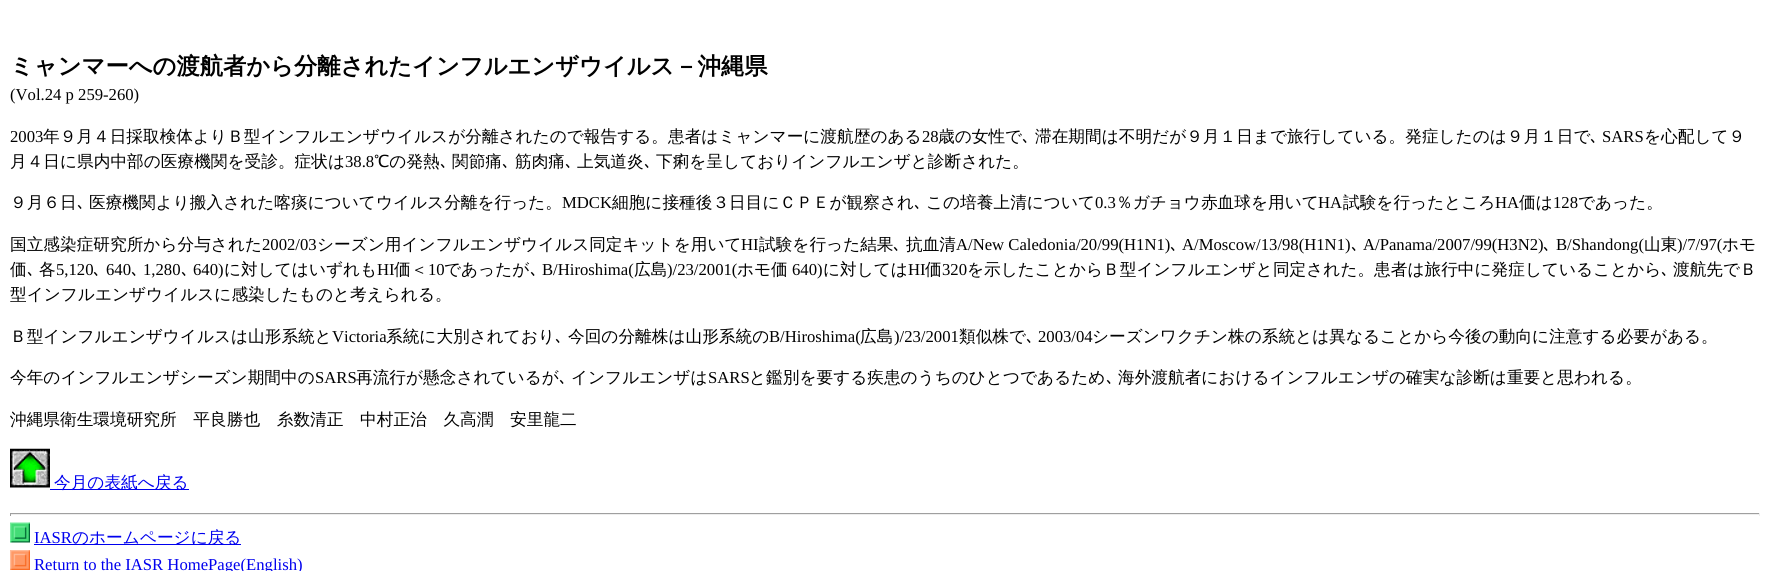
#include <cairo/cairo.h>
#include <math.h>
#include <stddef.h>


static void draw_image(cairo_t *cr, const char *path, double x, double y, double w, double h) {
  cairo_surface_t *image = cairo_image_surface_create_from_png(path);
  cairo_save(cr);
  cairo_set_source_surface(cr, image, x, y);
  cairo_rectangle(cr, x, y, w, h);
  cairo_fill(cr);
  cairo_restore(cr);
  cairo_surface_destroy(image);
}

static void draw(cairo_t *cr) {
  cairo_set_source_rgb(cr, 1, 1, 1);
  cairo_paint(cr);
  draw_image(cr, "images/1.png", 10, 448, 40, 40);
  cairo_set_source_rgb(cr, 0, 0, 238 / 255.0);
  cairo_rectangle(cr, 50, 489, 139, 1);
  cairo_fill(cr);
  cairo_set_source_rgb(cr, 159 / 255.0, 159 / 255.0, 159 / 255.0);
  cairo_rectangle(cr, 10, 513, 1750, 1);
  cairo_fill(cr);
  cairo_set_source_rgb(cr, 238 / 255.0, 238 / 255.0, 238 / 255.0);
  cairo_rectangle(cr, 1759, 513, 1, 3);
  cairo_fill(cr);
  cairo_rectangle(cr, 10, 514, 1750, 1);
  cairo_fill(cr);
  cairo_set_source_rgb(cr, 159 / 255.0, 159 / 255.0, 159 / 255.0);
  cairo_rectangle(cr, 10, 513, 1, 3);
  cairo_fill(cr);
  draw_image(cr, "images/2.png", 10, 522, 20, 21);
  cairo_set_source_rgb(cr, 0, 0, 238 / 255.0);
  cairo_rectangle(cr, 34, 544, 207, 1);
  cairo_fill(cr);
  draw_image(cr, "images/3.png", 10, 550, 20, 20);
  cairo_select_font_face(cr, "WenQuanYi Zen Hei", CAIRO_FONT_SLANT_NORMAL, CAIRO_FONT_WEIGHT_BOLD);
  cairo_set_font_size(cr, 23.3);
  cairo_set_source_rgb(cr, 0, 0, 0);
  cairo_move_to(cr, 10, 74);
  cairo_show_text(cr, "ミャンマーへの渡航者から分離されたインフルエンザウイルス－沖縄県");
  cairo_select_font_face(cr, "Liberation Serif", CAIRO_FONT_SLANT_NORMAL, CAIRO_FONT_WEIGHT_NORMAL);
  cairo_set_font_size(cr, 16.67);
  cairo_move_to(cr, 10, 100);
  cairo_show_text(cr, "(Vol.24 p 259-260)");
  cairo_move_to(cr, 10, 142);
  cairo_show_text(cr, "2003");
  cairo_select_font_face(cr, "WenQuanYi Zen Hei Medium", CAIRO_FONT_SLANT_NORMAL, CAIRO_FONT_WEIGHT_NORMAL);
  cairo_move_to(cr, 43, 142);
  cairo_show_text(cr, "年９月４日採取検体よりＢ型インフルエンザウイルスが分離されたので報告する。患者はミャンマーに渡航歴のある");
  cairo_select_font_face(cr, "Liberation Serif", CAIRO_FONT_SLANT_NORMAL, CAIRO_FONT_WEIGHT_NORMAL);
  cairo_move_to(cr, 922, 142);
  cairo_show_text(cr, "28");
  cairo_select_font_face(cr, "WenQuanYi Zen Hei Medium", CAIRO_FONT_SLANT_NORMAL, CAIRO_FONT_WEIGHT_NORMAL);
  cairo_move_to(cr, 938, 142);
  cairo_show_text(cr, "歳の女性で");
  cairo_select_font_face(cr, "IPAPGothic", CAIRO_FONT_SLANT_NORMAL, CAIRO_FONT_WEIGHT_NORMAL);
  cairo_move_to(cr, 1022, 142);
  cairo_show_text(cr, "､");
  cairo_select_font_face(cr, "WenQuanYi Zen Hei Medium", CAIRO_FONT_SLANT_NORMAL, CAIRO_FONT_WEIGHT_NORMAL);
  cairo_move_to(cr, 1035, 142);
  cairo_show_text(cr, "滞在期間は不明だが９月１日まで旅行している。発症したのは９月１日で");
  cairo_select_font_face(cr, "IPAPGothic", CAIRO_FONT_SLANT_NORMAL, CAIRO_FONT_WEIGHT_NORMAL);
  cairo_move_to(cr, 1590, 142);
  cairo_show_text(cr, "､");
  cairo_select_font_face(cr, "Liberation Serif", CAIRO_FONT_SLANT_NORMAL, CAIRO_FONT_WEIGHT_NORMAL);
  cairo_move_to(cr, 1602, 142);
  cairo_show_text(cr, "SARS");
  cairo_select_font_face(cr, "WenQuanYi Zen Hei Medium", CAIRO_FONT_SLANT_NORMAL, CAIRO_FONT_WEIGHT_NORMAL);
  cairo_move_to(cr, 1644, 142);
  cairo_show_text(cr, "を心配して９");
  cairo_move_to(cr, 10, 167);
  cairo_show_text(cr, "月４日に県内中部の医療機関を受診。症状は");
  cairo_select_font_face(cr, "Liberation Serif", CAIRO_FONT_SLANT_NORMAL, CAIRO_FONT_WEIGHT_NORMAL);
  cairo_move_to(cr, 345, 167);
  cairo_show_text(cr, "38.8");
  cairo_select_font_face(cr, "WenQuanYi Zen Hei Medium", CAIRO_FONT_SLANT_NORMAL, CAIRO_FONT_WEIGHT_NORMAL);
  cairo_move_to(cr, 374, 167);
  cairo_show_text(cr, "℃の発熱");
  cairo_select_font_face(cr, "IPAPGothic", CAIRO_FONT_SLANT_NORMAL, CAIRO_FONT_WEIGHT_NORMAL);
  cairo_move_to(cr, 440, 167);
  cairo_show_text(cr, "､");
  cairo_select_font_face(cr, "WenQuanYi Zen Hei Medium", CAIRO_FONT_SLANT_NORMAL, CAIRO_FONT_WEIGHT_NORMAL);
  cairo_move_to(cr, 452, 167);
  cairo_show_text(cr, "関節痛");
  cairo_select_font_face(cr, "IPAPGothic", CAIRO_FONT_SLANT_NORMAL, CAIRO_FONT_WEIGHT_NORMAL);
  cairo_move_to(cr, 502, 167);
  cairo_show_text(cr, "､");
  cairo_select_font_face(cr, "WenQuanYi Zen Hei Medium", CAIRO_FONT_SLANT_NORMAL, CAIRO_FONT_WEIGHT_NORMAL);
  cairo_move_to(cr, 515, 167);
  cairo_show_text(cr, "筋肉痛");
  cairo_select_font_face(cr, "IPAPGothic", CAIRO_FONT_SLANT_NORMAL, CAIRO_FONT_WEIGHT_NORMAL);
  cairo_move_to(cr, 565, 167);
  cairo_show_text(cr, "､");
  cairo_select_font_face(cr, "WenQuanYi Zen Hei Medium", CAIRO_FONT_SLANT_NORMAL, CAIRO_FONT_WEIGHT_NORMAL);
  cairo_move_to(cr, 577, 167);
  cairo_show_text(cr, "上気道炎");
  cairo_select_font_face(cr, "IPAPGothic", CAIRO_FONT_SLANT_NORMAL, CAIRO_FONT_WEIGHT_NORMAL);
  cairo_move_to(cr, 644, 167);
  cairo_show_text(cr, "､");
  cairo_select_font_face(cr, "WenQuanYi Zen Hei Medium", CAIRO_FONT_SLANT_NORMAL, CAIRO_FONT_WEIGHT_NORMAL);
  cairo_move_to(cr, 656, 167);
  cairo_show_text(cr, "下痢を呈しておりインフルエンザと診断された。");
  cairo_move_to(cr, 10, 208);
  cairo_show_text(cr, "９月６日");
  cairo_select_font_face(cr, "IPAPGothic", CAIRO_FONT_SLANT_NORMAL, CAIRO_FONT_WEIGHT_NORMAL);
  cairo_move_to(cr, 77, 208);
  cairo_show_text(cr, "､");
  cairo_select_font_face(cr, "WenQuanYi Zen Hei Medium", CAIRO_FONT_SLANT_NORMAL, CAIRO_FONT_WEIGHT_NORMAL);
  cairo_move_to(cr, 89, 208);
  cairo_show_text(cr, "医療機関より搬入された喀痰についてウイルス分離を行った。");
  cairo_select_font_face(cr, "Liberation Serif", CAIRO_FONT_SLANT_NORMAL, CAIRO_FONT_WEIGHT_NORMAL);
  cairo_move_to(cr, 562, 208);
  cairo_show_text(cr, "MDCK");
  cairo_select_font_face(cr, "WenQuanYi Zen Hei Medium", CAIRO_FONT_SLANT_NORMAL, CAIRO_FONT_WEIGHT_NORMAL);
  cairo_move_to(cr, 612, 208);
  cairo_show_text(cr, "細胞に接種後３日目にＣＰＥが観察され");
  cairo_select_font_face(cr, "IPAPGothic", CAIRO_FONT_SLANT_NORMAL, CAIRO_FONT_WEIGHT_NORMAL);
  cairo_move_to(cr, 914, 208);
  cairo_show_text(cr, "､");
  cairo_select_font_face(cr, "WenQuanYi Zen Hei Medium", CAIRO_FONT_SLANT_NORMAL, CAIRO_FONT_WEIGHT_NORMAL);
  cairo_move_to(cr, 926, 208);
  cairo_show_text(cr, "この培養上清について");
  cairo_select_font_face(cr, "Liberation Serif", CAIRO_FONT_SLANT_NORMAL, CAIRO_FONT_WEIGHT_NORMAL);
  cairo_move_to(cr, 1095, 208);
  cairo_show_text(cr, "0.3");
  cairo_select_font_face(cr, "WenQuanYi Zen Hei Medium", CAIRO_FONT_SLANT_NORMAL, CAIRO_FONT_WEIGHT_NORMAL);
  cairo_move_to(cr, 1116, 208);
  cairo_show_text(cr, "％ガチョウ赤血球を用いて");
  cairo_select_font_face(cr, "Liberation Serif", CAIRO_FONT_SLANT_NORMAL, CAIRO_FONT_WEIGHT_NORMAL);
  cairo_move_to(cr, 1318, 208);
  cairo_show_text(cr, "HA");
  cairo_select_font_face(cr, "WenQuanYi Zen Hei Medium", CAIRO_FONT_SLANT_NORMAL, CAIRO_FONT_WEIGHT_NORMAL);
  cairo_move_to(cr, 1343, 208);
  cairo_show_text(cr, "試験を行ったところ");
  cairo_select_font_face(cr, "Liberation Serif", CAIRO_FONT_SLANT_NORMAL, CAIRO_FONT_WEIGHT_NORMAL);
  cairo_move_to(cr, 1495, 208);
  cairo_show_text(cr, "HA");
  cairo_select_font_face(cr, "WenQuanYi Zen Hei Medium", CAIRO_FONT_SLANT_NORMAL, CAIRO_FONT_WEIGHT_NORMAL);
  cairo_move_to(cr, 1519, 208);
  cairo_show_text(cr, "価は");
  cairo_select_font_face(cr, "Liberation Serif", CAIRO_FONT_SLANT_NORMAL, CAIRO_FONT_WEIGHT_NORMAL);
  cairo_move_to(cr, 1553, 208);
  cairo_show_text(cr, "128");
  cairo_select_font_face(cr, "WenQuanYi Zen Hei Medium", CAIRO_FONT_SLANT_NORMAL, CAIRO_FONT_WEIGHT_NORMAL);
  cairo_move_to(cr, 1578, 208);
  cairo_show_text(cr, "であった。");
  cairo_move_to(cr, 10, 250);
  cairo_show_text(cr, "国立感染症研究所から分与された");
  cairo_select_font_face(cr, "Liberation Serif", CAIRO_FONT_SLANT_NORMAL, CAIRO_FONT_WEIGHT_NORMAL);
  cairo_move_to(cr, 262, 250);
  cairo_show_text(cr, "2002/03");
  cairo_select_font_face(cr, "WenQuanYi Zen Hei Medium", CAIRO_FONT_SLANT_NORMAL, CAIRO_FONT_WEIGHT_NORMAL);
  cairo_move_to(cr, 317, 250);
  cairo_show_text(cr, "シーズン用インフルエンザウイルス同定キットを用いて");
  cairo_select_font_face(cr, "Liberation Serif", CAIRO_FONT_SLANT_NORMAL, CAIRO_FONT_WEIGHT_NORMAL);
  cairo_move_to(cr, 741, 250);
  cairo_show_text(cr, "HI");
  cairo_select_font_face(cr, "WenQuanYi Zen Hei Medium", CAIRO_FONT_SLANT_NORMAL, CAIRO_FONT_WEIGHT_NORMAL);
  cairo_move_to(cr, 759, 250);
  cairo_show_text(cr, "試験を行った結果");
  cairo_select_font_face(cr, "IPAPGothic", CAIRO_FONT_SLANT_NORMAL, CAIRO_FONT_WEIGHT_NORMAL);
  cairo_move_to(cr, 893, 250);
  cairo_show_text(cr, "､");
  cairo_select_font_face(cr, "WenQuanYi Zen Hei Medium", CAIRO_FONT_SLANT_NORMAL, CAIRO_FONT_WEIGHT_NORMAL);
  cairo_move_to(cr, 906, 250);
  cairo_show_text(cr, "抗血清");
  cairo_select_font_face(cr, "Liberation Serif", CAIRO_FONT_SLANT_NORMAL, CAIRO_FONT_WEIGHT_NORMAL);
  cairo_move_to(cr, 956, 250);
  cairo_show_text(cr, "A/New Caledonia/20/99(H1N1)");
  cairo_select_font_face(cr, "IPAPGothic", CAIRO_FONT_SLANT_NORMAL, CAIRO_FONT_WEIGHT_NORMAL);
  cairo_move_to(cr, 1170, 250);
  cairo_show_text(cr, "､");
  cairo_select_font_face(cr, "Liberation Serif", CAIRO_FONT_SLANT_NORMAL, CAIRO_FONT_WEIGHT_NORMAL);
  cairo_move_to(cr, 1182, 250);
  cairo_show_text(cr, "A/Moscow/13/98(H1N1)");
  cairo_select_font_face(cr, "IPAPGothic", CAIRO_FONT_SLANT_NORMAL, CAIRO_FONT_WEIGHT_NORMAL);
  cairo_move_to(cr, 1351, 250);
  cairo_show_text(cr, "､");
  cairo_select_font_face(cr, "Liberation Serif", CAIRO_FONT_SLANT_NORMAL, CAIRO_FONT_WEIGHT_NORMAL);
  cairo_move_to(cr, 1363, 250);
  cairo_show_text(cr, "A/Panama/2007/99(H3N2)");
  cairo_select_font_face(cr, "IPAPGothic", CAIRO_FONT_SLANT_NORMAL, CAIRO_FONT_WEIGHT_NORMAL);
  cairo_move_to(cr, 1543, 250);
  cairo_show_text(cr, "､");
  cairo_select_font_face(cr, "Liberation Serif", CAIRO_FONT_SLANT_NORMAL, CAIRO_FONT_WEIGHT_NORMAL);
  cairo_move_to(cr, 1556, 250);
  cairo_show_text(cr, "B/Shandong(");
  cairo_select_font_face(cr, "WenQuanYi Zen Hei Medium", CAIRO_FONT_SLANT_NORMAL, CAIRO_FONT_WEIGHT_NORMAL);
  cairo_move_to(cr, 1644, 250);
  cairo_show_text(cr, "山東");
  cairo_select_font_face(cr, "Liberation Serif", CAIRO_FONT_SLANT_NORMAL, CAIRO_FONT_WEIGHT_NORMAL);
  cairo_move_to(cr, 1677, 250);
  cairo_show_text(cr, ")/7/97(");
  cairo_select_font_face(cr, "WenQuanYi Zen Hei Medium", CAIRO_FONT_SLANT_NORMAL, CAIRO_FONT_WEIGHT_NORMAL);
  cairo_move_to(cr, 1722, 250);
  cairo_show_text(cr, "ホモ");
  cairo_move_to(cr, 10, 275);
  cairo_show_text(cr, "価");
  cairo_select_font_face(cr, "IPAPGothic", CAIRO_FONT_SLANT_NORMAL, CAIRO_FONT_WEIGHT_NORMAL);
  cairo_move_to(cr, 27, 275);
  cairo_show_text(cr, "､");
  cairo_select_font_face(cr, "WenQuanYi Zen Hei Medium", CAIRO_FONT_SLANT_NORMAL, CAIRO_FONT_WEIGHT_NORMAL);
  cairo_move_to(cr, 39, 275);
  cairo_show_text(cr, "各");
  cairo_select_font_face(cr, "Liberation Serif", CAIRO_FONT_SLANT_NORMAL, CAIRO_FONT_WEIGHT_NORMAL);
  cairo_move_to(cr, 56, 275);
  cairo_show_text(cr, "5,120");
  cairo_select_font_face(cr, "IPAPGothic", CAIRO_FONT_SLANT_NORMAL, CAIRO_FONT_WEIGHT_NORMAL);
  cairo_move_to(cr, 93, 275);
  cairo_show_text(cr, "､");
  cairo_select_font_face(cr, "Liberation Serif", CAIRO_FONT_SLANT_NORMAL, CAIRO_FONT_WEIGHT_NORMAL);
  cairo_move_to(cr, 106, 275);
  cairo_show_text(cr, "640");
  cairo_select_font_face(cr, "IPAPGothic", CAIRO_FONT_SLANT_NORMAL, CAIRO_FONT_WEIGHT_NORMAL);
  cairo_move_to(cr, 131, 275);
  cairo_show_text(cr, "､");
  cairo_select_font_face(cr, "Liberation Serif", CAIRO_FONT_SLANT_NORMAL, CAIRO_FONT_WEIGHT_NORMAL);
  cairo_move_to(cr, 143, 275);
  cairo_show_text(cr, "1,280");
  cairo_select_font_face(cr, "IPAPGothic", CAIRO_FONT_SLANT_NORMAL, CAIRO_FONT_WEIGHT_NORMAL);
  cairo_move_to(cr, 181, 275);
  cairo_show_text(cr, "､");
  cairo_select_font_face(cr, "Liberation Serif", CAIRO_FONT_SLANT_NORMAL, CAIRO_FONT_WEIGHT_NORMAL);
  cairo_move_to(cr, 193, 275);
  cairo_show_text(cr, "640)");
  cairo_select_font_face(cr, "WenQuanYi Zen Hei Medium", CAIRO_FONT_SLANT_NORMAL, CAIRO_FONT_WEIGHT_NORMAL);
  cairo_move_to(cr, 224, 275);
  cairo_show_text(cr, "に対してはいずれも");
  cairo_select_font_face(cr, "Liberation Serif", CAIRO_FONT_SLANT_NORMAL, CAIRO_FONT_WEIGHT_NORMAL);
  cairo_move_to(cr, 377, 275);
  cairo_show_text(cr, "HI");
  cairo_select_font_face(cr, "WenQuanYi Zen Hei Medium", CAIRO_FONT_SLANT_NORMAL, CAIRO_FONT_WEIGHT_NORMAL);
  cairo_move_to(cr, 394, 275);
  cairo_show_text(cr, "価＜");
  cairo_select_font_face(cr, "Liberation Serif", CAIRO_FONT_SLANT_NORMAL, CAIRO_FONT_WEIGHT_NORMAL);
  cairo_move_to(cr, 428, 275);
  cairo_show_text(cr, "10");
  cairo_select_font_face(cr, "WenQuanYi Zen Hei Medium", CAIRO_FONT_SLANT_NORMAL, CAIRO_FONT_WEIGHT_NORMAL);
  cairo_move_to(cr, 444, 275);
  cairo_show_text(cr, "であったが");
  cairo_select_font_face(cr, "IPAPGothic", CAIRO_FONT_SLANT_NORMAL, CAIRO_FONT_WEIGHT_NORMAL);
  cairo_move_to(cr, 530, 275);
  cairo_show_text(cr, "､");
  cairo_select_font_face(cr, "Liberation Serif", CAIRO_FONT_SLANT_NORMAL, CAIRO_FONT_WEIGHT_NORMAL);
  cairo_move_to(cr, 542, 275);
  cairo_show_text(cr, "B/Hiroshima(");
  cairo_select_font_face(cr, "WenQuanYi Zen Hei Medium", CAIRO_FONT_SLANT_NORMAL, CAIRO_FONT_WEIGHT_NORMAL);
  cairo_move_to(cr, 634, 275);
  cairo_show_text(cr, "広島");
  cairo_select_font_face(cr, "Liberation Serif", CAIRO_FONT_SLANT_NORMAL, CAIRO_FONT_WEIGHT_NORMAL);
  cairo_move_to(cr, 667, 275);
  cairo_show_text(cr, ")/23/2001(");
  cairo_select_font_face(cr, "WenQuanYi Zen Hei Medium", CAIRO_FONT_SLANT_NORMAL, CAIRO_FONT_WEIGHT_NORMAL);
  cairo_move_to(cr, 737, 275);
  cairo_show_text(cr, "ホモ価");
  cairo_select_font_face(cr, "Liberation Serif", CAIRO_FONT_SLANT_NORMAL, CAIRO_FONT_WEIGHT_NORMAL);
  cairo_move_to(cr, 792, 275);
  cairo_show_text(cr, "640)");
  cairo_select_font_face(cr, "WenQuanYi Zen Hei Medium", CAIRO_FONT_SLANT_NORMAL, CAIRO_FONT_WEIGHT_NORMAL);
  cairo_move_to(cr, 823, 275);
  cairo_show_text(cr, "に対しては");
  cairo_select_font_face(cr, "Liberation Serif", CAIRO_FONT_SLANT_NORMAL, CAIRO_FONT_WEIGHT_NORMAL);
  cairo_move_to(cr, 908, 275);
  cairo_show_text(cr, "HI");
  cairo_select_font_face(cr, "WenQuanYi Zen Hei Medium", CAIRO_FONT_SLANT_NORMAL, CAIRO_FONT_WEIGHT_NORMAL);
  cairo_move_to(cr, 925, 275);
  cairo_show_text(cr, "価");
  cairo_select_font_face(cr, "Liberation Serif", CAIRO_FONT_SLANT_NORMAL, CAIRO_FONT_WEIGHT_NORMAL);
  cairo_move_to(cr, 942, 275);
  cairo_show_text(cr, "320");
  cairo_select_font_face(cr, "WenQuanYi Zen Hei Medium", CAIRO_FONT_SLANT_NORMAL, CAIRO_FONT_WEIGHT_NORMAL);
  cairo_move_to(cr, 967, 275);
  cairo_show_text(cr, "を示したことからＢ型インフルエンザと同定された。患者は旅行中に発症していることから");
  cairo_select_font_face(cr, "IPAPGothic", CAIRO_FONT_SLANT_NORMAL, CAIRO_FONT_WEIGHT_NORMAL);
  cairo_move_to(cr, 1661, 275);
  cairo_show_text(cr, "､");
  cairo_select_font_face(cr, "WenQuanYi Zen Hei Medium", CAIRO_FONT_SLANT_NORMAL, CAIRO_FONT_WEIGHT_NORMAL);
  cairo_move_to(cr, 1673, 275);
  cairo_show_text(cr, "渡航先でＢ");
  cairo_move_to(cr, 10, 300);
  cairo_show_text(cr, "型インフルエンザウイルスに感染したものと考えられる。");
  cairo_move_to(cr, 10, 342);
  cairo_show_text(cr, "Ｂ型インフルエンザウイルスは山形系統と");
  cairo_select_font_face(cr, "Liberation Serif", CAIRO_FONT_SLANT_NORMAL, CAIRO_FONT_WEIGHT_NORMAL);
  cairo_move_to(cr, 332, 342);
  cairo_show_text(cr, "Victoria");
  cairo_select_font_face(cr, "WenQuanYi Zen Hei Medium", CAIRO_FONT_SLANT_NORMAL, CAIRO_FONT_WEIGHT_NORMAL);
  cairo_move_to(cr, 386, 342);
  cairo_show_text(cr, "系統に大別されており");
  cairo_select_font_face(cr, "IPAPGothic", CAIRO_FONT_SLANT_NORMAL, CAIRO_FONT_WEIGHT_NORMAL);
  cairo_move_to(cr, 555, 342);
  cairo_show_text(cr, "､");
  cairo_select_font_face(cr, "WenQuanYi Zen Hei Medium", CAIRO_FONT_SLANT_NORMAL, CAIRO_FONT_WEIGHT_NORMAL);
  cairo_move_to(cr, 568, 342);
  cairo_show_text(cr, "今回の分離株は山形系統の");
  cairo_select_font_face(cr, "Liberation Serif", CAIRO_FONT_SLANT_NORMAL, CAIRO_FONT_WEIGHT_NORMAL);
  cairo_move_to(cr, 769, 342);
  cairo_show_text(cr, "B/Hiroshima(");
  cairo_select_font_face(cr, "WenQuanYi Zen Hei Medium", CAIRO_FONT_SLANT_NORMAL, CAIRO_FONT_WEIGHT_NORMAL);
  cairo_move_to(cr, 860, 342);
  cairo_show_text(cr, "広島");
  cairo_select_font_face(cr, "Liberation Serif", CAIRO_FONT_SLANT_NORMAL, CAIRO_FONT_WEIGHT_NORMAL);
  cairo_move_to(cr, 894, 342);
  cairo_show_text(cr, ")/23/2001");
  cairo_select_font_face(cr, "WenQuanYi Zen Hei Medium", CAIRO_FONT_SLANT_NORMAL, CAIRO_FONT_WEIGHT_NORMAL);
  cairo_move_to(cr, 959, 342);
  cairo_show_text(cr, "類似株で");
  cairo_select_font_face(cr, "IPAPGothic", CAIRO_FONT_SLANT_NORMAL, CAIRO_FONT_WEIGHT_NORMAL);
  cairo_move_to(cr, 1026, 342);
  cairo_show_text(cr, "､");
  cairo_select_font_face(cr, "Liberation Serif", CAIRO_FONT_SLANT_NORMAL, CAIRO_FONT_WEIGHT_NORMAL);
  cairo_move_to(cr, 1038, 342);
  cairo_show_text(cr, "2003/04");
  cairo_select_font_face(cr, "WenQuanYi Zen Hei Medium", CAIRO_FONT_SLANT_NORMAL, CAIRO_FONT_WEIGHT_NORMAL);
  cairo_move_to(cr, 1092, 342);
  cairo_show_text(cr, "シーズンワクチン株の系統とは異なることから今後の動向に注意する必要がある。");
  cairo_move_to(cr, 10, 383);
  cairo_show_text(cr, "今年のインフルエンザシーズン期間中の");
  cairo_select_font_face(cr, "Liberation Serif", CAIRO_FONT_SLANT_NORMAL, CAIRO_FONT_WEIGHT_NORMAL);
  cairo_move_to(cr, 315, 383);
  cairo_show_text(cr, "SARS");
  cairo_select_font_face(cr, "WenQuanYi Zen Hei Medium", CAIRO_FONT_SLANT_NORMAL, CAIRO_FONT_WEIGHT_NORMAL);
  cairo_move_to(cr, 356, 383);
  cairo_show_text(cr, "再流行が懸念されているが");
  cairo_select_font_face(cr, "IPAPGothic", CAIRO_FONT_SLANT_NORMAL, CAIRO_FONT_WEIGHT_NORMAL);
  cairo_move_to(cr, 559, 383);
  cairo_show_text(cr, "､");
  cairo_select_font_face(cr, "WenQuanYi Zen Hei Medium", CAIRO_FONT_SLANT_NORMAL, CAIRO_FONT_WEIGHT_NORMAL);
  cairo_move_to(cr, 571, 383);
  cairo_show_text(cr, "インフルエンザは");
  cairo_select_font_face(cr, "Liberation Serif", CAIRO_FONT_SLANT_NORMAL, CAIRO_FONT_WEIGHT_NORMAL);
  cairo_move_to(cr, 708, 383);
  cairo_show_text(cr, "SARS");
  cairo_select_font_face(cr, "WenQuanYi Zen Hei Medium", CAIRO_FONT_SLANT_NORMAL, CAIRO_FONT_WEIGHT_NORMAL);
  cairo_move_to(cr, 749, 383);
  cairo_show_text(cr, "と鑑別を要する疾患のうちのひとつであるため");
  cairo_select_font_face(cr, "IPAPGothic", CAIRO_FONT_SLANT_NORMAL, CAIRO_FONT_WEIGHT_NORMAL);
  cairo_move_to(cr, 1106, 383);
  cairo_show_text(cr, "､");
  cairo_select_font_face(cr, "WenQuanYi Zen Hei Medium", CAIRO_FONT_SLANT_NORMAL, CAIRO_FONT_WEIGHT_NORMAL);
  cairo_move_to(cr, 1118, 383);
  cairo_show_text(cr, "海外渡航者におけるインフルエンザの確実な診断は重要と思われる。");
  cairo_move_to(cr, 10, 425);
  cairo_show_text(cr, "沖縄県衛生環境研究所　平良勝也　糸数清正　中村正治　久高潤　安里龍二");
  cairo_set_source_rgb(cr, 0, 0, 238 / 255.0);
  cairo_move_to(cr, 54, 488);
  cairo_show_text(cr, "今月の表紙へ戻る");
  cairo_select_font_face(cr, "Liberation Serif", CAIRO_FONT_SLANT_NORMAL, CAIRO_FONT_WEIGHT_NORMAL);
  cairo_move_to(cr, 34, 543);
  cairo_show_text(cr, "IASR");
  cairo_select_font_face(cr, "WenQuanYi Zen Hei Medium", CAIRO_FONT_SLANT_NORMAL, CAIRO_FONT_WEIGHT_NORMAL);
  cairo_move_to(cr, 72, 543);
  cairo_show_text(cr, "のホームページに戻る");
  cairo_select_font_face(cr, "Liberation Serif", CAIRO_FONT_SLANT_NORMAL, CAIRO_FONT_WEIGHT_NORMAL);
  cairo_move_to(cr, 34, 570);
  cairo_show_text(cr, "Return to the IASR HomePage(English)");
}

int main(void) {
  cairo_surface_t *surface = cairo_image_surface_create(CAIRO_FORMAT_RGB24, 1770, 571);
  cairo_t *cr = cairo_create(surface);
  cairo_font_options_t *options = cairo_font_options_create();
  cairo_font_options_set_hint_metrics(options, CAIRO_HINT_METRICS_OFF);
  cairo_font_options_set_hint_style(options, CAIRO_HINT_STYLE_NONE);
  cairo_set_font_options(cr, options);
  cairo_set_miter_limit(cr, 4);
  draw(cr);
  cairo_surface_write_to_png(surface, "out.png");
  cairo_font_options_destroy(options);
  cairo_destroy(cr);
  cairo_surface_destroy(surface);
  return 0;
}
